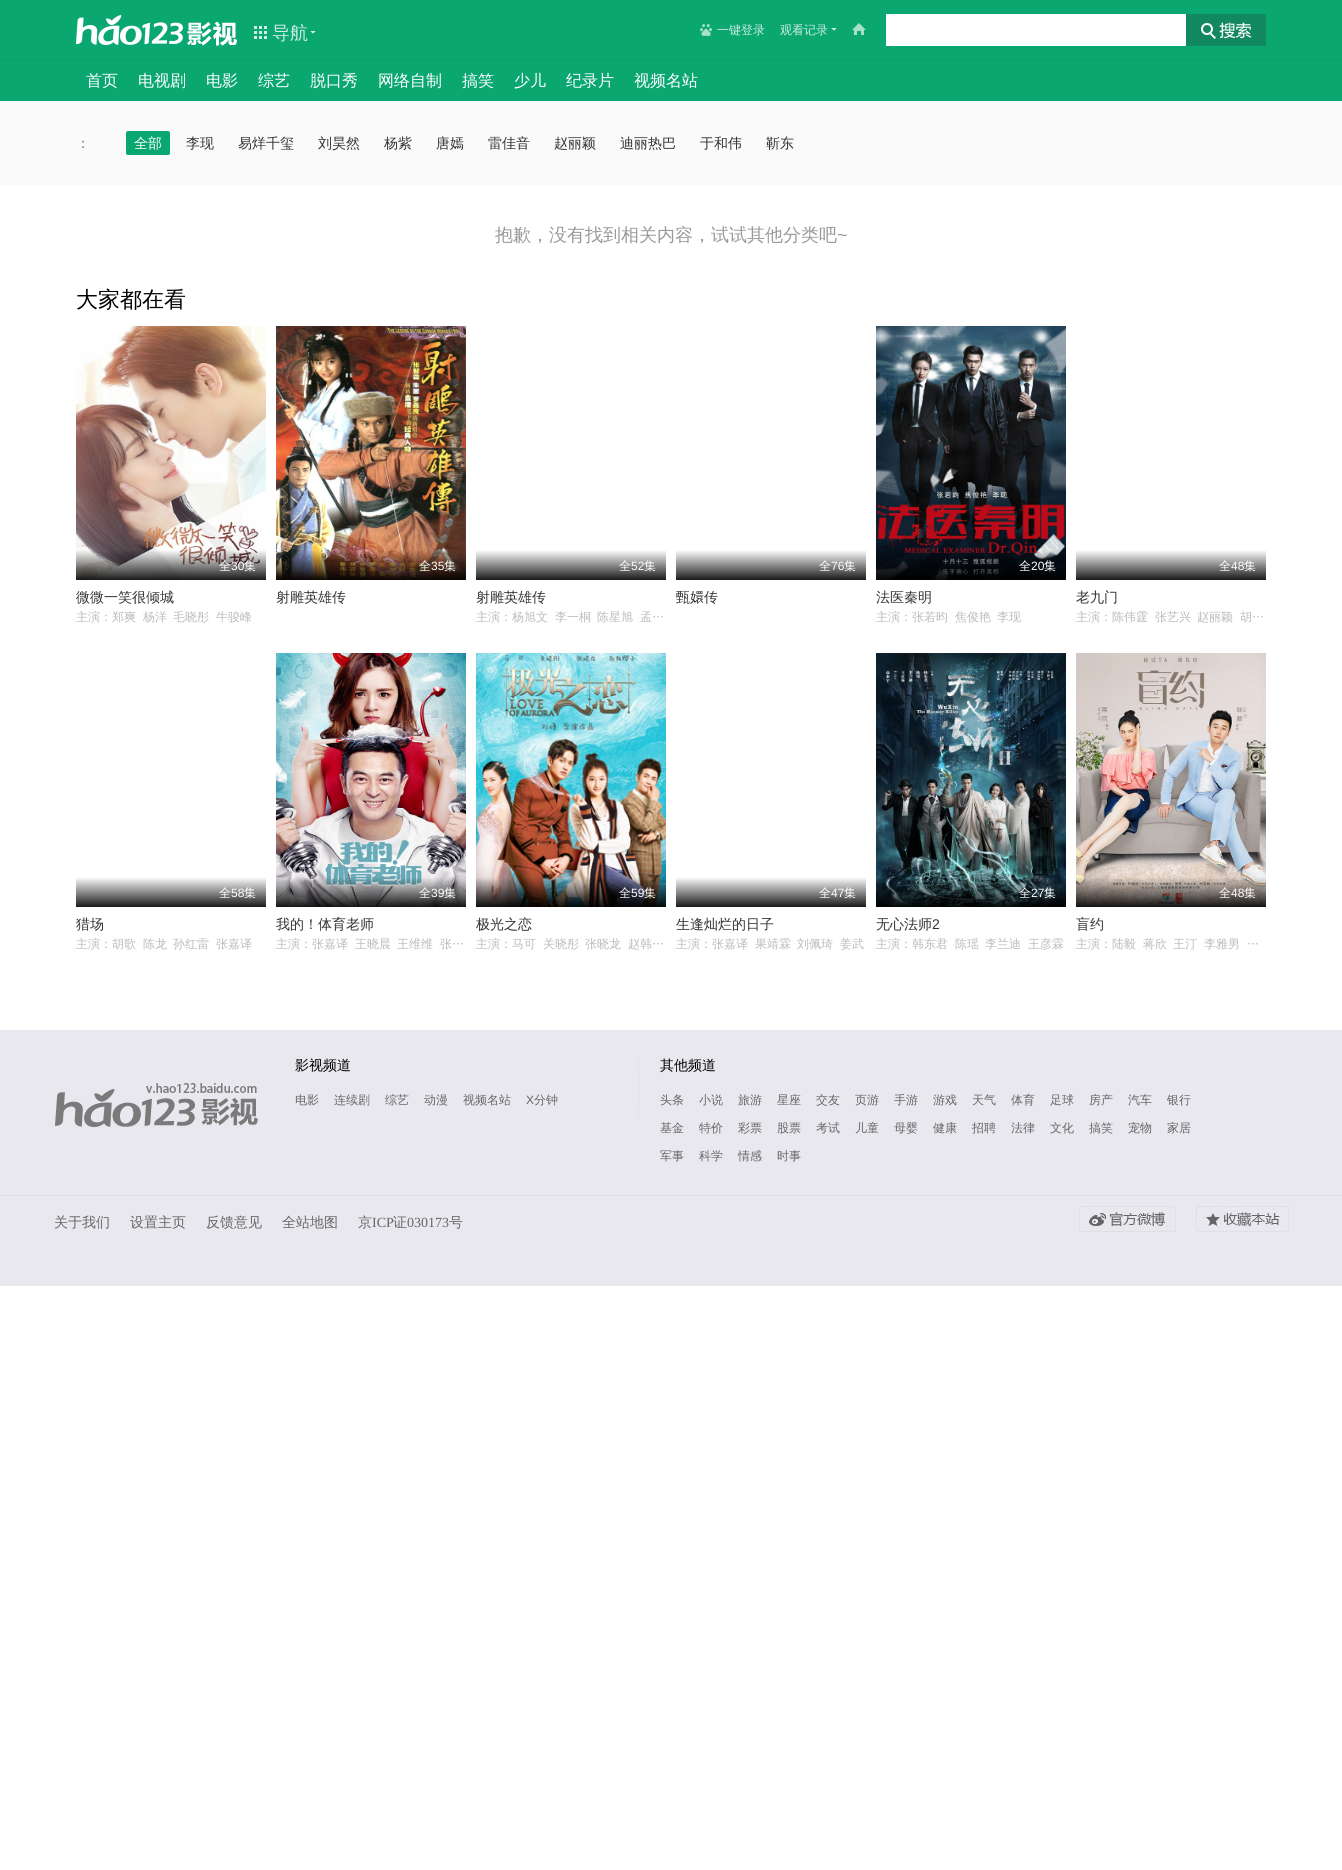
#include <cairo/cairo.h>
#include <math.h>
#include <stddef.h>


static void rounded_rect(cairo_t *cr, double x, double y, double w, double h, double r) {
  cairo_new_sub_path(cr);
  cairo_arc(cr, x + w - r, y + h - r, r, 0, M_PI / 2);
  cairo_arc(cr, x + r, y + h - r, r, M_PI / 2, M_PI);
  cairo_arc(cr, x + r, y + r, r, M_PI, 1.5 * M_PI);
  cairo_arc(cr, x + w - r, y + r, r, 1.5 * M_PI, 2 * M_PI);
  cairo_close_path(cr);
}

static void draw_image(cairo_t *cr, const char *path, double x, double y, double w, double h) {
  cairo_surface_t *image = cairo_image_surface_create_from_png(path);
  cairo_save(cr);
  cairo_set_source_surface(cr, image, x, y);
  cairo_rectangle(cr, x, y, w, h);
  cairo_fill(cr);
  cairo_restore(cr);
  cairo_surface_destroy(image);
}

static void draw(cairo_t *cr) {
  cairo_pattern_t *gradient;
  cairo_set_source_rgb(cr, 1, 1, 1);
  cairo_paint(cr);
  cairo_set_source_rgb(cr, 10 / 255.0, 167 / 255.0, 112 / 255.0);
  cairo_rectangle(cr, 0, 0, 1342, 60);
  cairo_fill(cr);
  cairo_set_source_rgb(cr, 9 / 255.0, 158 / 255.0, 106 / 255.0);
  cairo_rectangle(cr, 0, 60, 1342, 1);
  cairo_fill(cr);
  draw_image(cr, "images/1.png", 76, 15, 107, 30);
  draw_image(cr, "images/2.png", 187, 21, 50, 25);
  draw_image(cr, "images/3.png", 254, 26, 13, 13);
  cairo_set_source_rgb(cr, 206 / 255.0, 237 / 255.0, 226 / 255.0);
  cairo_new_path(cr);
  cairo_move_to(cr, 310, 31);
  cairo_line_to(cr, 316, 31);
  cairo_line_to(cr, 313, 34);
  cairo_close_path(cr);
  cairo_fill(cr);
  cairo_set_source_rgb(cr, 10 / 255.0, 167 / 255.0, 112 / 255.0);
  cairo_new_path(cr);
  cairo_move_to(cr, 316, 31);
  cairo_line_to(cr, 316, 37);
  cairo_line_to(cr, 313, 34);
  cairo_close_path(cr);
  cairo_move_to(cr, 310, 37);
  cairo_line_to(cr, 310, 31);
  cairo_line_to(cr, 313, 34);
  cairo_close_path(cr);
  cairo_fill(cr);
  draw_image(cr, "images/4.png", 700, 24, 12, 12);
  cairo_set_source_rgb(cr, 206 / 255.0, 237 / 255.0, 226 / 255.0);
  cairo_new_path(cr);
  cairo_move_to(cr, 831, 28);
  cairo_line_to(cr, 837, 28);
  cairo_line_to(cr, 834, 31);
  cairo_close_path(cr);
  cairo_fill(cr);
  cairo_set_source_rgb(cr, 10 / 255.0, 167 / 255.0, 112 / 255.0);
  cairo_new_path(cr);
  cairo_move_to(cr, 837, 28);
  cairo_line_to(cr, 837, 34);
  cairo_line_to(cr, 834, 31);
  cairo_close_path(cr);
  cairo_move_to(cr, 831, 34);
  cairo_line_to(cr, 831, 28);
  cairo_line_to(cr, 834, 31);
  cairo_close_path(cr);
  cairo_fill(cr);
  draw_image(cr, "images/5.png", 852, 23, 14, 12);
  cairo_set_source_rgb(cr, 1, 1, 1);
  cairo_rectangle(cr, 886, 14, 300, 32);
  cairo_fill(cr);
  cairo_set_source_rgb(cr, 17 / 255.0, 136 / 255.0, 96 / 255.0);
  cairo_rectangle(cr, 1186, 14, 80, 32);
  cairo_fill(cr);
  draw_image(cr, "images/6.png", 1201, 22, 51, 17);
  cairo_set_source_rgb(cr, 10 / 255.0, 167 / 255.0, 112 / 255.0);
  cairo_rectangle(cr, 0, 61, 1342, 40);
  cairo_fill(cr);
  cairo_set_source_rgb(cr, 250 / 255.0, 250 / 255.0, 250 / 255.0);
  cairo_rectangle(cr, 0, 101, 1342, 84);
  cairo_fill(cr);
  cairo_set_source_rgb(cr, 10 / 255.0, 167 / 255.0, 112 / 255.0);
  rounded_rect(cr, 126, 131, 44, 24, 2);
  cairo_fill(cr);
  draw_image(cr, "images/7.png", 76, 326, 190, 254);
  draw_image(cr, "images/8.png", 276, 326, 190, 254);
  gradient = cairo_pattern_create_linear(571, 550, 571, 580);
  cairo_pattern_add_color_stop_rgba(gradient, 0, 1, 1, 1, 1);
  cairo_pattern_add_color_stop_rgba(gradient, 1, 26 / 255.0, 26 / 255.0, 26 / 255.0, 1);
  cairo_set_source(cr, gradient);
  cairo_pattern_destroy(gradient);
  cairo_rectangle(cr, 476, 550, 190, 30);
  cairo_fill(cr);
  gradient = cairo_pattern_create_linear(771, 550, 771, 580);
  cairo_pattern_add_color_stop_rgba(gradient, 0, 1, 1, 1, 1);
  cairo_pattern_add_color_stop_rgba(gradient, 1, 26 / 255.0, 26 / 255.0, 26 / 255.0, 1);
  cairo_set_source(cr, gradient);
  cairo_pattern_destroy(gradient);
  cairo_rectangle(cr, 676, 550, 190, 30);
  cairo_fill(cr);
  draw_image(cr, "images/9.png", 876, 326, 190, 254);
  gradient = cairo_pattern_create_linear(1171, 550, 1171, 580);
  cairo_pattern_add_color_stop_rgba(gradient, 0, 1, 1, 1, 1);
  cairo_pattern_add_color_stop_rgba(gradient, 1, 26 / 255.0, 26 / 255.0, 26 / 255.0, 1);
  cairo_set_source(cr, gradient);
  cairo_pattern_destroy(gradient);
  cairo_rectangle(cr, 1076, 550, 190, 30);
  cairo_fill(cr);
  gradient = cairo_pattern_create_linear(171, 877, 171, 907);
  cairo_pattern_add_color_stop_rgba(gradient, 0, 1, 1, 1, 1);
  cairo_pattern_add_color_stop_rgba(gradient, 1, 26 / 255.0, 26 / 255.0, 26 / 255.0, 1);
  cairo_set_source(cr, gradient);
  cairo_pattern_destroy(gradient);
  cairo_rectangle(cr, 76, 877, 190, 30);
  cairo_fill(cr);
  draw_image(cr, "images/10.png", 276, 653, 190, 254);
  draw_image(cr, "images/11.png", 476, 653, 190, 254);
  gradient = cairo_pattern_create_linear(771, 877, 771, 907);
  cairo_pattern_add_color_stop_rgba(gradient, 0, 1, 1, 1, 1);
  cairo_pattern_add_color_stop_rgba(gradient, 1, 26 / 255.0, 26 / 255.0, 26 / 255.0, 1);
  cairo_set_source(cr, gradient);
  cairo_pattern_destroy(gradient);
  cairo_rectangle(cr, 676, 877, 190, 30);
  cairo_fill(cr);
  draw_image(cr, "images/12.png", 876, 653, 190, 254);
  draw_image(cr, "images/13.png", 1076, 653, 190, 254);
  cairo_set_source_rgb(cr, 233 / 255.0, 232 / 255.0, 239 / 255.0);
  cairo_rectangle(cr, 0, 1030, 1342, 256);
  cairo_fill(cr);
  draw_image(cr, "images/14.png", 55, 1083, 203, 44);
  draw_image(cr, "images/15.png", 638, 1054, 1, 65);
  cairo_set_source_rgb(cr, 224 / 255.0, 224 / 255.0, 224 / 255.0);
  cairo_rectangle(cr, 0, 1195, 1342, 1);
  cairo_fill(cr);
  draw_image(cr, "images/16.png", 1079, 1206, 97, 26);
  draw_image(cr, "images/17.png", 1196, 1206, 93, 26);
  cairo_select_font_face(cr, "WenQuanYi Zen Hei Medium", CAIRO_FONT_SLANT_NORMAL, CAIRO_FONT_WEIGHT_NORMAL);
  cairo_set_font_size(cr, 18);
  cairo_set_source_rgb(cr, 206 / 255.0, 237 / 255.0, 226 / 255.0);
  cairo_move_to(cr, 272, 39);
  cairo_show_text(cr, "导航");
  cairo_set_font_size(cr, 12);
  cairo_move_to(cr, 717, 34);
  cairo_show_text(cr, "一键登录");
  cairo_move_to(cr, 780, 34);
  cairo_show_text(cr, "观看记录");
  cairo_set_font_size(cr, 16);
  cairo_set_source_rgb(cr, 1, 1, 1);
  cairo_move_to(cr, 86, 86);
  cairo_show_text(cr, "首页");
  cairo_move_to(cr, 138, 86);
  cairo_show_text(cr, "电视剧");
  cairo_move_to(cr, 206, 86);
  cairo_show_text(cr, "电影");
  cairo_move_to(cr, 258, 86);
  cairo_show_text(cr, "综艺");
  cairo_move_to(cr, 310, 86);
  cairo_show_text(cr, "脱口秀");
  cairo_move_to(cr, 378, 86);
  cairo_show_text(cr, "网络自制");
  cairo_move_to(cr, 462, 86);
  cairo_show_text(cr, "搞笑");
  cairo_move_to(cr, 514, 86);
  cairo_show_text(cr, "少儿");
  cairo_move_to(cr, 566, 86);
  cairo_show_text(cr, "纪录片");
  cairo_move_to(cr, 634, 86);
  cairo_show_text(cr, "视频名站");
  cairo_set_font_size(cr, 14);
  cairo_move_to(cr, 134, 148);
  cairo_show_text(cr, "全部");
  cairo_set_source_rgb(cr, 51 / 255.0, 51 / 255.0, 51 / 255.0);
  cairo_move_to(cr, 186, 148);
  cairo_show_text(cr, "李现");
  cairo_move_to(cr, 238, 148);
  cairo_show_text(cr, "易烊千玺");
  cairo_move_to(cr, 318, 148);
  cairo_show_text(cr, "刘昊然");
  cairo_move_to(cr, 384, 148);
  cairo_show_text(cr, "杨紫");
  cairo_move_to(cr, 436, 148);
  cairo_show_text(cr, "唐嫣");
  cairo_move_to(cr, 488, 148);
  cairo_show_text(cr, "雷佳音");
  cairo_move_to(cr, 554, 148);
  cairo_show_text(cr, "赵丽颖");
  cairo_move_to(cr, 620, 148);
  cairo_show_text(cr, "迪丽热巴");
  cairo_move_to(cr, 700, 148);
  cairo_show_text(cr, "于和伟");
  cairo_move_to(cr, 766, 148);
  cairo_show_text(cr, "靳东");
  cairo_set_source_rgb(cr, 153 / 255.0, 153 / 255.0, 153 / 255.0);
  cairo_move_to(cr, 76, 148);
  cairo_show_text(cr, "：");
  cairo_move_to(cr, 76, 148);
  cairo_show_text(cr, "：");
  cairo_set_font_size(cr, 18);
  cairo_move_to(cr, 495, 241);
  cairo_show_text(cr, "抱歉，没有找到相关内容，试试其他分类吧");
  cairo_select_font_face(cr, "Liberation Sans", CAIRO_FONT_SLANT_NORMAL, CAIRO_FONT_WEIGHT_NORMAL);
  cairo_move_to(cr, 837, 241);
  cairo_show_text(cr, "~");
  cairo_select_font_face(cr, "WenQuanYi Zen Hei Medium", CAIRO_FONT_SLANT_NORMAL, CAIRO_FONT_WEIGHT_NORMAL);
  cairo_set_font_size(cr, 22);
  cairo_set_source_rgb(cr, 0, 0, 0);
  cairo_move_to(cr, 76, 307);
  cairo_show_text(cr, "大家都在看");
  cairo_set_font_size(cr, 12);
  cairo_set_source_rgb(cr, 1, 1, 1);
  cairo_move_to(cr, 219, 570);
  cairo_show_text(cr, "全");
  cairo_select_font_face(cr, "Liberation Sans", CAIRO_FONT_SLANT_NORMAL, CAIRO_FONT_WEIGHT_NORMAL);
  cairo_move_to(cr, 231, 570);
  cairo_show_text(cr, "30");
  cairo_select_font_face(cr, "WenQuanYi Zen Hei Medium", CAIRO_FONT_SLANT_NORMAL, CAIRO_FONT_WEIGHT_NORMAL);
  cairo_move_to(cr, 244, 570);
  cairo_show_text(cr, "集");
  cairo_set_font_size(cr, 14);
  cairo_set_source_rgb(cr, 51 / 255.0, 51 / 255.0, 51 / 255.0);
  cairo_move_to(cr, 76, 602);
  cairo_show_text(cr, "微微一笑很倾城");
  cairo_set_font_size(cr, 12);
  cairo_set_source_rgb(cr, 187 / 255.0, 187 / 255.0, 187 / 255.0);
  cairo_move_to(cr, 76, 621);
  cairo_show_text(cr, "主演：郑爽");
  cairo_move_to(cr, 143, 621);
  cairo_show_text(cr, "杨洋");
  cairo_move_to(cr, 173, 621);
  cairo_show_text(cr, "毛晓彤");
  cairo_move_to(cr, 216, 621);
  cairo_show_text(cr, "牛骏峰");
  cairo_set_source_rgb(cr, 1, 1, 1);
  cairo_move_to(cr, 419, 570);
  cairo_show_text(cr, "全");
  cairo_select_font_face(cr, "Liberation Sans", CAIRO_FONT_SLANT_NORMAL, CAIRO_FONT_WEIGHT_NORMAL);
  cairo_move_to(cr, 431, 570);
  cairo_show_text(cr, "35");
  cairo_select_font_face(cr, "WenQuanYi Zen Hei Medium", CAIRO_FONT_SLANT_NORMAL, CAIRO_FONT_WEIGHT_NORMAL);
  cairo_move_to(cr, 444, 570);
  cairo_show_text(cr, "集");
  cairo_set_font_size(cr, 14);
  cairo_set_source_rgb(cr, 51 / 255.0, 51 / 255.0, 51 / 255.0);
  cairo_move_to(cr, 276, 602);
  cairo_show_text(cr, "射雕英雄传");
  cairo_set_font_size(cr, 12);
  cairo_set_source_rgb(cr, 1, 1, 1);
  cairo_move_to(cr, 619, 570);
  cairo_show_text(cr, "全");
  cairo_select_font_face(cr, "Liberation Sans", CAIRO_FONT_SLANT_NORMAL, CAIRO_FONT_WEIGHT_NORMAL);
  cairo_move_to(cr, 631, 570);
  cairo_show_text(cr, "52");
  cairo_select_font_face(cr, "WenQuanYi Zen Hei Medium", CAIRO_FONT_SLANT_NORMAL, CAIRO_FONT_WEIGHT_NORMAL);
  cairo_move_to(cr, 644, 570);
  cairo_show_text(cr, "集");
  cairo_set_font_size(cr, 14);
  cairo_set_source_rgb(cr, 51 / 255.0, 51 / 255.0, 51 / 255.0);
  cairo_move_to(cr, 476, 602);
  cairo_show_text(cr, "射雕英雄传");
  cairo_set_font_size(cr, 12);
  cairo_set_source_rgb(cr, 187 / 255.0, 187 / 255.0, 187 / 255.0);
  cairo_move_to(cr, 476, 621);
  cairo_show_text(cr, "主演：杨旭文");
  cairo_move_to(cr, 555, 621);
  cairo_show_text(cr, "李一桐");
  cairo_move_to(cr, 597, 621);
  cairo_show_text(cr, "陈星旭");
  cairo_move_to(cr, 640, 621);
  cairo_show_text(cr, "孟…");
  cairo_set_source_rgb(cr, 1, 1, 1);
  cairo_move_to(cr, 819, 570);
  cairo_show_text(cr, "全");
  cairo_select_font_face(cr, "Liberation Sans", CAIRO_FONT_SLANT_NORMAL, CAIRO_FONT_WEIGHT_NORMAL);
  cairo_move_to(cr, 831, 570);
  cairo_show_text(cr, "76");
  cairo_select_font_face(cr, "WenQuanYi Zen Hei Medium", CAIRO_FONT_SLANT_NORMAL, CAIRO_FONT_WEIGHT_NORMAL);
  cairo_move_to(cr, 844, 570);
  cairo_show_text(cr, "集");
  cairo_set_font_size(cr, 14);
  cairo_set_source_rgb(cr, 51 / 255.0, 51 / 255.0, 51 / 255.0);
  cairo_move_to(cr, 676, 602);
  cairo_show_text(cr, "甄嬛传");
  cairo_set_font_size(cr, 12);
  cairo_set_source_rgb(cr, 1, 1, 1);
  cairo_move_to(cr, 1019, 570);
  cairo_show_text(cr, "全");
  cairo_select_font_face(cr, "Liberation Sans", CAIRO_FONT_SLANT_NORMAL, CAIRO_FONT_WEIGHT_NORMAL);
  cairo_move_to(cr, 1031, 570);
  cairo_show_text(cr, "20");
  cairo_select_font_face(cr, "WenQuanYi Zen Hei Medium", CAIRO_FONT_SLANT_NORMAL, CAIRO_FONT_WEIGHT_NORMAL);
  cairo_move_to(cr, 1044, 570);
  cairo_show_text(cr, "集");
  cairo_set_font_size(cr, 14);
  cairo_set_source_rgb(cr, 51 / 255.0, 51 / 255.0, 51 / 255.0);
  cairo_move_to(cr, 876, 602);
  cairo_show_text(cr, "法医秦明");
  cairo_set_font_size(cr, 12);
  cairo_set_source_rgb(cr, 187 / 255.0, 187 / 255.0, 187 / 255.0);
  cairo_move_to(cr, 876, 621);
  cairo_show_text(cr, "主演：张若昀");
  cairo_move_to(cr, 955, 621);
  cairo_show_text(cr, "焦俊艳");
  cairo_move_to(cr, 997, 621);
  cairo_show_text(cr, "李现");
  cairo_set_source_rgb(cr, 1, 1, 1);
  cairo_move_to(cr, 1219, 570);
  cairo_show_text(cr, "全");
  cairo_select_font_face(cr, "Liberation Sans", CAIRO_FONT_SLANT_NORMAL, CAIRO_FONT_WEIGHT_NORMAL);
  cairo_move_to(cr, 1231, 570);
  cairo_show_text(cr, "48");
  cairo_select_font_face(cr, "WenQuanYi Zen Hei Medium", CAIRO_FONT_SLANT_NORMAL, CAIRO_FONT_WEIGHT_NORMAL);
  cairo_move_to(cr, 1244, 570);
  cairo_show_text(cr, "集");
  cairo_set_font_size(cr, 14);
  cairo_set_source_rgb(cr, 51 / 255.0, 51 / 255.0, 51 / 255.0);
  cairo_move_to(cr, 1076, 602);
  cairo_show_text(cr, "老九门");
  cairo_set_font_size(cr, 12);
  cairo_set_source_rgb(cr, 187 / 255.0, 187 / 255.0, 187 / 255.0);
  cairo_move_to(cr, 1076, 621);
  cairo_show_text(cr, "主演：陈伟霆");
  cairo_move_to(cr, 1155, 621);
  cairo_show_text(cr, "张艺兴");
  cairo_move_to(cr, 1197, 621);
  cairo_show_text(cr, "赵丽颖");
  cairo_move_to(cr, 1240, 621);
  cairo_show_text(cr, "胡…");
  cairo_set_source_rgb(cr, 1, 1, 1);
  cairo_move_to(cr, 219, 897);
  cairo_show_text(cr, "全");
  cairo_select_font_face(cr, "Liberation Sans", CAIRO_FONT_SLANT_NORMAL, CAIRO_FONT_WEIGHT_NORMAL);
  cairo_move_to(cr, 231, 897);
  cairo_show_text(cr, "58");
  cairo_select_font_face(cr, "WenQuanYi Zen Hei Medium", CAIRO_FONT_SLANT_NORMAL, CAIRO_FONT_WEIGHT_NORMAL);
  cairo_move_to(cr, 244, 897);
  cairo_show_text(cr, "集");
  cairo_set_font_size(cr, 14);
  cairo_set_source_rgb(cr, 51 / 255.0, 51 / 255.0, 51 / 255.0);
  cairo_move_to(cr, 76, 929);
  cairo_show_text(cr, "猎场");
  cairo_set_font_size(cr, 12);
  cairo_set_source_rgb(cr, 187 / 255.0, 187 / 255.0, 187 / 255.0);
  cairo_move_to(cr, 76, 948);
  cairo_show_text(cr, "主演：胡歌");
  cairo_move_to(cr, 143, 948);
  cairo_show_text(cr, "陈龙");
  cairo_move_to(cr, 173, 948);
  cairo_show_text(cr, "孙红雷");
  cairo_move_to(cr, 216, 948);
  cairo_show_text(cr, "张嘉译");
  cairo_set_source_rgb(cr, 1, 1, 1);
  cairo_move_to(cr, 419, 897);
  cairo_show_text(cr, "全");
  cairo_select_font_face(cr, "Liberation Sans", CAIRO_FONT_SLANT_NORMAL, CAIRO_FONT_WEIGHT_NORMAL);
  cairo_move_to(cr, 431, 897);
  cairo_show_text(cr, "39");
  cairo_select_font_face(cr, "WenQuanYi Zen Hei Medium", CAIRO_FONT_SLANT_NORMAL, CAIRO_FONT_WEIGHT_NORMAL);
  cairo_move_to(cr, 444, 897);
  cairo_show_text(cr, "集");
  cairo_set_font_size(cr, 14);
  cairo_set_source_rgb(cr, 51 / 255.0, 51 / 255.0, 51 / 255.0);
  cairo_move_to(cr, 276, 929);
  cairo_show_text(cr, "我的！体育老师");
  cairo_set_font_size(cr, 12);
  cairo_set_source_rgb(cr, 187 / 255.0, 187 / 255.0, 187 / 255.0);
  cairo_move_to(cr, 276, 948);
  cairo_show_text(cr, "主演：张嘉译");
  cairo_move_to(cr, 355, 948);
  cairo_show_text(cr, "王晓晨");
  cairo_move_to(cr, 397, 948);
  cairo_show_text(cr, "王维维");
  cairo_move_to(cr, 440, 948);
  cairo_show_text(cr, "张…");
  cairo_set_source_rgb(cr, 1, 1, 1);
  cairo_move_to(cr, 619, 897);
  cairo_show_text(cr, "全");
  cairo_select_font_face(cr, "Liberation Sans", CAIRO_FONT_SLANT_NORMAL, CAIRO_FONT_WEIGHT_NORMAL);
  cairo_move_to(cr, 631, 897);
  cairo_show_text(cr, "59");
  cairo_select_font_face(cr, "WenQuanYi Zen Hei Medium", CAIRO_FONT_SLANT_NORMAL, CAIRO_FONT_WEIGHT_NORMAL);
  cairo_move_to(cr, 644, 897);
  cairo_show_text(cr, "集");
  cairo_set_font_size(cr, 14);
  cairo_set_source_rgb(cr, 51 / 255.0, 51 / 255.0, 51 / 255.0);
  cairo_move_to(cr, 476, 929);
  cairo_show_text(cr, "极光之恋");
  cairo_set_font_size(cr, 12);
  cairo_set_source_rgb(cr, 187 / 255.0, 187 / 255.0, 187 / 255.0);
  cairo_move_to(cr, 476, 948);
  cairo_show_text(cr, "主演：马可");
  cairo_move_to(cr, 543, 948);
  cairo_show_text(cr, "关晓彤");
  cairo_move_to(cr, 585, 948);
  cairo_show_text(cr, "张晓龙");
  cairo_move_to(cr, 628, 948);
  cairo_show_text(cr, "赵韩…");
  cairo_set_source_rgb(cr, 1, 1, 1);
  cairo_move_to(cr, 819, 897);
  cairo_show_text(cr, "全");
  cairo_select_font_face(cr, "Liberation Sans", CAIRO_FONT_SLANT_NORMAL, CAIRO_FONT_WEIGHT_NORMAL);
  cairo_move_to(cr, 831, 897);
  cairo_show_text(cr, "47");
  cairo_select_font_face(cr, "WenQuanYi Zen Hei Medium", CAIRO_FONT_SLANT_NORMAL, CAIRO_FONT_WEIGHT_NORMAL);
  cairo_move_to(cr, 844, 897);
  cairo_show_text(cr, "集");
  cairo_set_font_size(cr, 14);
  cairo_set_source_rgb(cr, 51 / 255.0, 51 / 255.0, 51 / 255.0);
  cairo_move_to(cr, 676, 929);
  cairo_show_text(cr, "生逢灿烂的日子");
  cairo_set_font_size(cr, 12);
  cairo_set_source_rgb(cr, 187 / 255.0, 187 / 255.0, 187 / 255.0);
  cairo_move_to(cr, 676, 948);
  cairo_show_text(cr, "主演：张嘉译");
  cairo_move_to(cr, 755, 948);
  cairo_show_text(cr, "果靖霖");
  cairo_move_to(cr, 797, 948);
  cairo_show_text(cr, "刘佩琦");
  cairo_move_to(cr, 840, 948);
  cairo_show_text(cr, "姜武");
  cairo_set_source_rgb(cr, 1, 1, 1);
  cairo_move_to(cr, 1019, 897);
  cairo_show_text(cr, "全");
  cairo_select_font_face(cr, "Liberation Sans", CAIRO_FONT_SLANT_NORMAL, CAIRO_FONT_WEIGHT_NORMAL);
  cairo_move_to(cr, 1031, 897);
  cairo_show_text(cr, "27");
  cairo_select_font_face(cr, "WenQuanYi Zen Hei Medium", CAIRO_FONT_SLANT_NORMAL, CAIRO_FONT_WEIGHT_NORMAL);
  cairo_move_to(cr, 1044, 897);
  cairo_show_text(cr, "集");
  cairo_set_font_size(cr, 14);
  cairo_set_source_rgb(cr, 51 / 255.0, 51 / 255.0, 51 / 255.0);
  cairo_move_to(cr, 876, 929);
  cairo_show_text(cr, "无心法师");
  cairo_select_font_face(cr, "Liberation Sans", CAIRO_FONT_SLANT_NORMAL, CAIRO_FONT_WEIGHT_NORMAL);
  cairo_move_to(cr, 932, 929);
  cairo_show_text(cr, "2");
  cairo_select_font_face(cr, "WenQuanYi Zen Hei Medium", CAIRO_FONT_SLANT_NORMAL, CAIRO_FONT_WEIGHT_NORMAL);
  cairo_set_font_size(cr, 12);
  cairo_set_source_rgb(cr, 187 / 255.0, 187 / 255.0, 187 / 255.0);
  cairo_move_to(cr, 876, 948);
  cairo_show_text(cr, "主演：韩东君");
  cairo_move_to(cr, 955, 948);
  cairo_show_text(cr, "陈瑶");
  cairo_move_to(cr, 985, 948);
  cairo_show_text(cr, "李兰迪");
  cairo_move_to(cr, 1028, 948);
  cairo_show_text(cr, "王彦霖");
  cairo_set_source_rgb(cr, 1, 1, 1);
  cairo_move_to(cr, 1219, 897);
  cairo_show_text(cr, "全");
  cairo_select_font_face(cr, "Liberation Sans", CAIRO_FONT_SLANT_NORMAL, CAIRO_FONT_WEIGHT_NORMAL);
  cairo_move_to(cr, 1231, 897);
  cairo_show_text(cr, "48");
  cairo_select_font_face(cr, "WenQuanYi Zen Hei Medium", CAIRO_FONT_SLANT_NORMAL, CAIRO_FONT_WEIGHT_NORMAL);
  cairo_move_to(cr, 1244, 897);
  cairo_show_text(cr, "集");
  cairo_set_font_size(cr, 14);
  cairo_set_source_rgb(cr, 51 / 255.0, 51 / 255.0, 51 / 255.0);
  cairo_move_to(cr, 1076, 929);
  cairo_show_text(cr, "盲约");
  cairo_set_font_size(cr, 12);
  cairo_set_source_rgb(cr, 187 / 255.0, 187 / 255.0, 187 / 255.0);
  cairo_move_to(cr, 1076, 948);
  cairo_show_text(cr, "主演：陆毅");
  cairo_move_to(cr, 1143, 948);
  cairo_show_text(cr, "蒋欣");
  cairo_move_to(cr, 1173, 948);
  cairo_show_text(cr, "王汀");
  cairo_move_to(cr, 1204, 948);
  cairo_show_text(cr, "李雅男");
  cairo_move_to(cr, 1247, 948);
  cairo_show_text(cr, "…");
  cairo_set_font_size(cr, 14);
  cairo_set_source_rgb(cr, 0, 0, 0);
  cairo_move_to(cr, 295, 1070);
  cairo_show_text(cr, "影视频道");
  cairo_set_font_size(cr, 12);
  cairo_set_source_rgb(cr, 102 / 255.0, 102 / 255.0, 102 / 255.0);
  cairo_move_to(cr, 295, 1104);
  cairo_show_text(cr, "电影");
  cairo_move_to(cr, 334, 1104);
  cairo_show_text(cr, "连续剧");
  cairo_move_to(cr, 385, 1104);
  cairo_show_text(cr, "综艺");
  cairo_move_to(cr, 424, 1104);
  cairo_show_text(cr, "动漫");
  cairo_move_to(cr, 463, 1104);
  cairo_show_text(cr, "视频名站");
  cairo_select_font_face(cr, "Liberation Sans", CAIRO_FONT_SLANT_NORMAL, CAIRO_FONT_WEIGHT_NORMAL);
  cairo_move_to(cr, 526, 1104);
  cairo_show_text(cr, "X");
  cairo_select_font_face(cr, "WenQuanYi Zen Hei Medium", CAIRO_FONT_SLANT_NORMAL, CAIRO_FONT_WEIGHT_NORMAL);
  cairo_move_to(cr, 534, 1104);
  cairo_show_text(cr, "分钟");
  cairo_set_font_size(cr, 14);
  cairo_set_source_rgb(cr, 0, 0, 0);
  cairo_move_to(cr, 660, 1070);
  cairo_show_text(cr, "其他频道");
  cairo_set_font_size(cr, 12);
  cairo_set_source_rgb(cr, 102 / 255.0, 102 / 255.0, 102 / 255.0);
  cairo_move_to(cr, 660, 1104);
  cairo_show_text(cr, "头条");
  cairo_move_to(cr, 699, 1104);
  cairo_show_text(cr, "小说");
  cairo_move_to(cr, 738, 1104);
  cairo_show_text(cr, "旅游");
  cairo_move_to(cr, 777, 1104);
  cairo_show_text(cr, "星座");
  cairo_move_to(cr, 816, 1104);
  cairo_show_text(cr, "交友");
  cairo_move_to(cr, 855, 1104);
  cairo_show_text(cr, "页游");
  cairo_move_to(cr, 894, 1104);
  cairo_show_text(cr, "手游");
  cairo_move_to(cr, 933, 1104);
  cairo_show_text(cr, "游戏");
  cairo_move_to(cr, 972, 1104);
  cairo_show_text(cr, "天气");
  cairo_move_to(cr, 1011, 1104);
  cairo_show_text(cr, "体育");
  cairo_move_to(cr, 1050, 1104);
  cairo_show_text(cr, "足球");
  cairo_move_to(cr, 1089, 1104);
  cairo_show_text(cr, "房产");
  cairo_move_to(cr, 1128, 1104);
  cairo_show_text(cr, "汽车");
  cairo_move_to(cr, 1167, 1104);
  cairo_show_text(cr, "银行");
  cairo_move_to(cr, 660, 1132);
  cairo_show_text(cr, "基金");
  cairo_move_to(cr, 699, 1132);
  cairo_show_text(cr, "特价");
  cairo_move_to(cr, 738, 1132);
  cairo_show_text(cr, "彩票");
  cairo_move_to(cr, 777, 1132);
  cairo_show_text(cr, "股票");
  cairo_move_to(cr, 816, 1132);
  cairo_show_text(cr, "考试");
  cairo_move_to(cr, 855, 1132);
  cairo_show_text(cr, "儿童");
  cairo_move_to(cr, 894, 1132);
  cairo_show_text(cr, "母婴");
  cairo_move_to(cr, 933, 1132);
  cairo_show_text(cr, "健康");
  cairo_move_to(cr, 972, 1132);
  cairo_show_text(cr, "招聘");
  cairo_move_to(cr, 1011, 1132);
  cairo_show_text(cr, "法律");
  cairo_move_to(cr, 1050, 1132);
  cairo_show_text(cr, "文化");
  cairo_move_to(cr, 1089, 1132);
  cairo_show_text(cr, "搞笑");
  cairo_move_to(cr, 1128, 1132);
  cairo_show_text(cr, "宠物");
  cairo_move_to(cr, 1167, 1132);
  cairo_show_text(cr, "家居");
  cairo_move_to(cr, 660, 1160);
  cairo_show_text(cr, "军事");
  cairo_move_to(cr, 699, 1160);
  cairo_show_text(cr, "科学");
  cairo_move_to(cr, 738, 1160);
  cairo_show_text(cr, "情感");
  cairo_move_to(cr, 777, 1160);
  cairo_show_text(cr, "时事");
  cairo_set_font_size(cr, 14);
  cairo_move_to(cr, 54, 1227);
  cairo_show_text(cr, "关于我们");
  cairo_move_to(cr, 130, 1227);
  cairo_show_text(cr, "设置主页");
  cairo_move_to(cr, 206, 1227);
  cairo_show_text(cr, "反馈意见");
  cairo_move_to(cr, 282, 1227);
  cairo_show_text(cr, "全站地图");
  cairo_move_to(cr, 358, 1227);
  cairo_show_text(cr, "京");
  cairo_select_font_face(cr, "Liberation Serif", CAIRO_FONT_SLANT_NORMAL, CAIRO_FONT_WEIGHT_NORMAL);
  cairo_move_to(cr, 372, 1227);
  cairo_show_text(cr, "ICP");
  cairo_select_font_face(cr, "WenQuanYi Zen Hei Medium", CAIRO_FONT_SLANT_NORMAL, CAIRO_FONT_WEIGHT_NORMAL);
  cairo_move_to(cr, 393, 1227);
  cairo_show_text(cr, "证");
  cairo_select_font_face(cr, "Liberation Serif", CAIRO_FONT_SLANT_NORMAL, CAIRO_FONT_WEIGHT_NORMAL);
  cairo_move_to(cr, 407, 1227);
  cairo_show_text(cr, "030173");
  cairo_select_font_face(cr, "WenQuanYi Zen Hei Medium", CAIRO_FONT_SLANT_NORMAL, CAIRO_FONT_WEIGHT_NORMAL);
  cairo_move_to(cr, 449, 1227);
  cairo_show_text(cr, "号");
}

int main(void) {
  cairo_surface_t *surface = cairo_image_surface_create(CAIRO_FORMAT_RGB24, 1342, 1870);
  cairo_t *cr = cairo_create(surface);
  cairo_font_options_t *options = cairo_font_options_create();
  cairo_font_options_set_hint_metrics(options, CAIRO_HINT_METRICS_OFF);
  cairo_font_options_set_hint_style(options, CAIRO_HINT_STYLE_NONE);
  cairo_set_font_options(cr, options);
  cairo_set_miter_limit(cr, 4);
  draw(cr);
  cairo_surface_write_to_png(surface, "out.png");
  cairo_font_options_destroy(options);
  cairo_destroy(cr);
  cairo_surface_destroy(surface);
  return 0;
}
